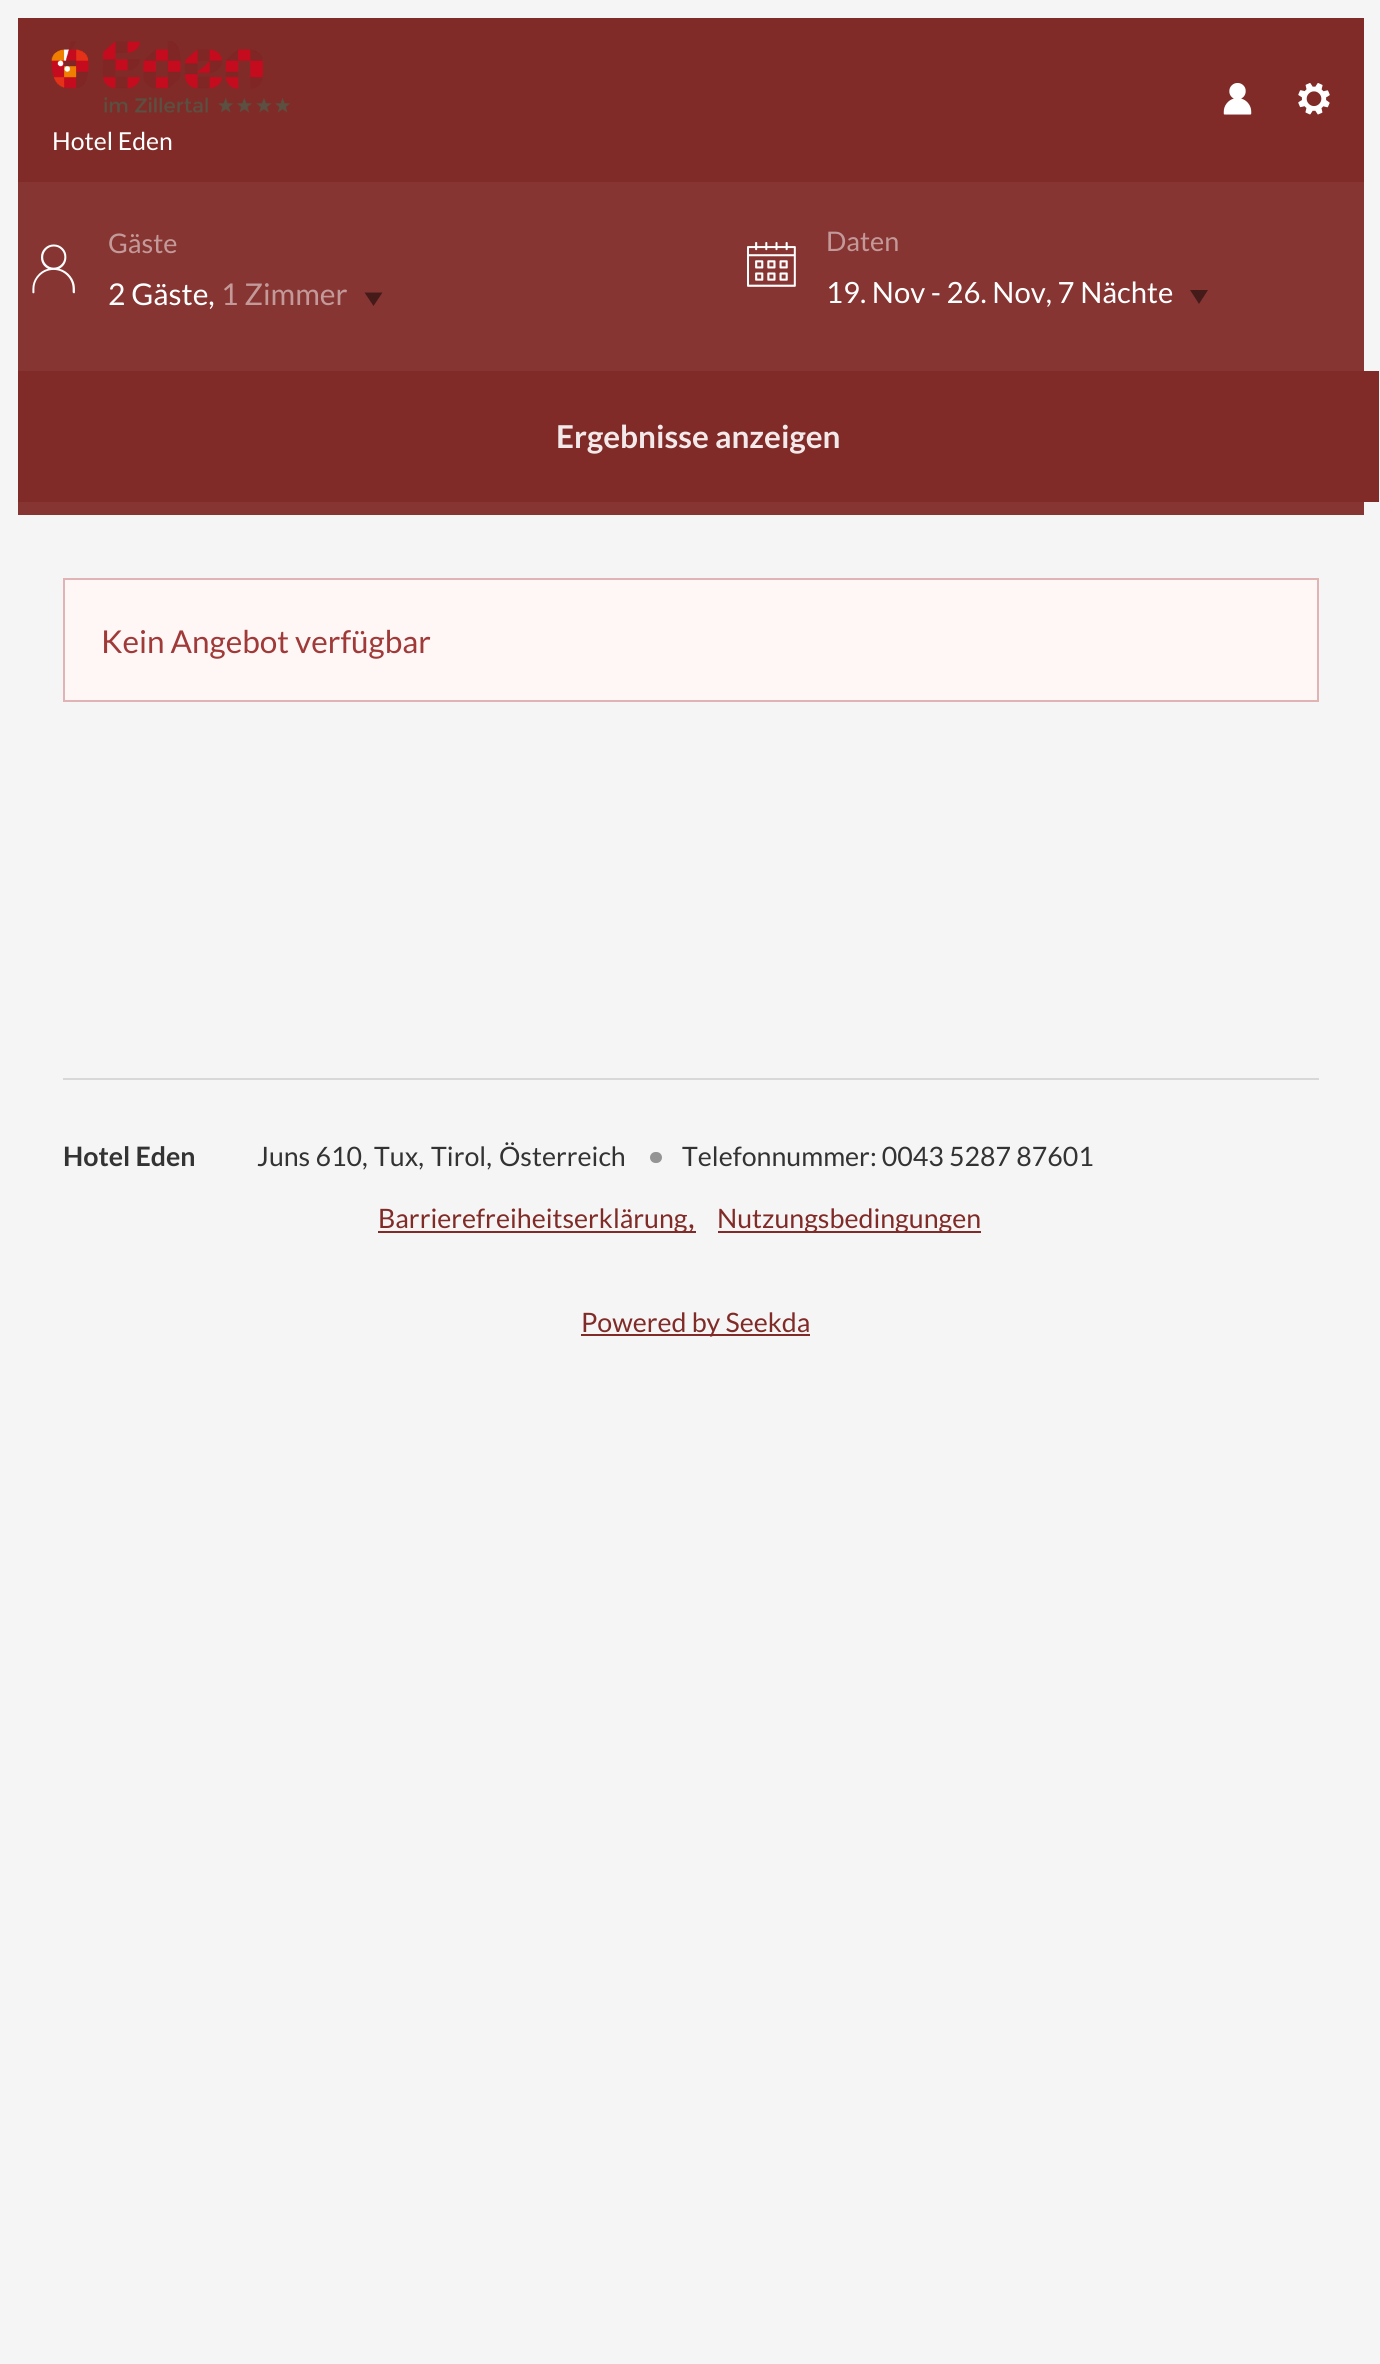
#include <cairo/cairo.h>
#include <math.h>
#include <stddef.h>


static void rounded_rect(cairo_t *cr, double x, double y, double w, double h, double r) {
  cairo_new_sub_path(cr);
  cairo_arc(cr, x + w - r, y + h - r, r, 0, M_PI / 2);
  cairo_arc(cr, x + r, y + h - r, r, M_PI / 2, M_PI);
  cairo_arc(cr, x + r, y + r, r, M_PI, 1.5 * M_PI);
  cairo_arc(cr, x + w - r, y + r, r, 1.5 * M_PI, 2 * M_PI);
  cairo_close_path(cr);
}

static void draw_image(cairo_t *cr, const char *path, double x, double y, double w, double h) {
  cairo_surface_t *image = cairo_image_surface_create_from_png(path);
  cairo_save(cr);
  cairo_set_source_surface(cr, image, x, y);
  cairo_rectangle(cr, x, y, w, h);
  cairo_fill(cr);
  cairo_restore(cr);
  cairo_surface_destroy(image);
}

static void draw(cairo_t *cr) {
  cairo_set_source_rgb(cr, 245 / 255.0, 245 / 255.0, 245 / 255.0);
  cairo_paint(cr);
  cairo_set_source_rgb(cr, 129 / 255.0, 43 / 255.0, 40 / 255.0);
  cairo_rectangle(cr, 18, 18, 1346, 164);
  cairo_fill(cr);
  draw_image(cr, "images/1.png", 1223, 83, 29, 32);
  draw_image(cr, "images/2.png", 1298, 83, 32, 32);
  draw_image(cr, "images/3.png", 51, 41, 239, 72);
  cairo_set_source_rgb(cr, 135 / 255.0, 53 / 255.0, 50 / 255.0);
  cairo_rectangle(cr, 18, 182, 1346, 333);
  cairo_fill(cr);
  draw_image(cr, "images/4.png", 32, 244, 43, 50);
  cairo_set_source_rgb(cr, 68 / 255.0, 27 / 255.0, 25 / 255.0);
  cairo_new_path(cr);
  cairo_move_to(cr, 364.5, 292.5);
  cairo_line_to(cr, 382.5, 292.5);
  cairo_line_to(cr, 373.5, 306);
  cairo_close_path(cr);
  cairo_fill(cr);
  draw_image(cr, "images/5.png", 747, 242, 49, 45);
  cairo_new_path(cr);
  cairo_move_to(cr, 1190, 290);
  cairo_line_to(cr, 1208, 290);
  cairo_line_to(cr, 1199, 304);
  cairo_close_path(cr);
  cairo_fill(cr);
  cairo_set_source_rgb(cr, 129 / 255.0, 43 / 255.0, 40 / 255.0);
  cairo_rectangle(cr, 18, 371, 1361, 131);
  cairo_fill(cr);
  cairo_set_source_rgb(cr, 1, 246 / 255.0, 246 / 255.0);
  cairo_rectangle(cr, 64, 579, 1254, 122);
  cairo_fill_preserve(cr);
  cairo_set_source_rgb(cr, 224 / 255.0, 180 / 255.0, 180 / 255.0);
  cairo_stroke(cr);
  cairo_set_source_rgb(cr, 216 / 255.0, 216 / 255.0, 216 / 255.0);
  cairo_rectangle(cr, 63, 1078, 1256, 2);
  cairo_fill(cr);
  cairo_set_source_rgb(cr, 148 / 255.0, 148 / 255.0, 148 / 255.0);
  rounded_rect(cr, 650, 1152, 12, 11, 5.5);
  cairo_fill(cr);
  cairo_set_source_rgb(cr, 129 / 255.0, 43 / 255.0, 40 / 255.0);
  cairo_rectangle(cr, 378, 1231, 318, 2);
  cairo_fill(cr);
  cairo_rectangle(cr, 718, 1231, 263, 2);
  cairo_fill(cr);
  cairo_rectangle(cr, 581, 1334, 229, 2);
  cairo_fill(cr);
  cairo_select_font_face(cr, "Lato", CAIRO_FONT_SLANT_NORMAL, CAIRO_FONT_WEIGHT_NORMAL);
  cairo_set_font_size(cr, 24.75);
  cairo_set_source_rgb(cr, 1, 1, 1);
  cairo_move_to(cr, 52, 150);
  cairo_show_text(cr, "Hotel Eden");
  cairo_set_font_size(cr, 27);
  cairo_set_source_rgb(cr, 195 / 255.0, 154 / 255.0, 153 / 255.0);
  cairo_move_to(cr, 108, 253);
  cairo_show_text(cr, "Gäste");
  cairo_set_font_size(cr, 30);
  cairo_set_source_rgb(cr, 1, 1, 1);
  cairo_move_to(cr, 108, 305);
  cairo_show_text(cr, "2 Gäste,");
  cairo_set_source_rgb(cr, 195 / 255.0, 154 / 255.0, 153 / 255.0);
  cairo_move_to(cr, 221, 305);
  cairo_show_text(cr, "1 Zimmer");
  cairo_set_font_size(cr, 27);
  cairo_move_to(cr, 826, 251);
  cairo_show_text(cr, "Daten");
  cairo_set_font_size(cr, 29.25);
  cairo_set_source_rgb(cr, 1, 1, 1);
  cairo_move_to(cr, 826, 303);
  cairo_show_text(cr, "19. Nov - 26. Nov, 7 Nächte");
  cairo_select_font_face(cr, "Lato", CAIRO_FONT_SLANT_NORMAL, CAIRO_FONT_WEIGHT_BOLD);
  cairo_set_font_size(cr, 31.5);
  cairo_set_source_rgb(cr, 242 / 255.0, 234 / 255.0, 234 / 255.0);
  cairo_move_to(cr, 556, 448);
  cairo_show_text(cr, "Ergebnisse anzeigen");
  cairo_select_font_face(cr, "Lato", CAIRO_FONT_SLANT_NORMAL, CAIRO_FONT_WEIGHT_NORMAL);
  cairo_set_source_rgb(cr, 159 / 255.0, 58 / 255.0, 56 / 255.0);
  cairo_move_to(cr, 101, 653);
  cairo_show_text(cr, "Kein Angebot verfügbar");
  cairo_select_font_face(cr, "Lato", CAIRO_FONT_SLANT_NORMAL, CAIRO_FONT_WEIGHT_BOLD);
  cairo_set_font_size(cr, 26.75);
  cairo_set_source_rgb(cr, 51 / 255.0, 51 / 255.0, 51 / 255.0);
  cairo_move_to(cr, 63, 1166);
  cairo_show_text(cr, "Hotel Eden");
  cairo_select_font_face(cr, "Lato", CAIRO_FONT_SLANT_NORMAL, CAIRO_FONT_WEIGHT_NORMAL);
  cairo_move_to(cr, 257, 1166);
  cairo_show_text(cr, "Juns 610,");
  cairo_move_to(cr, 374, 1166);
  cairo_show_text(cr, "Tux,");
  cairo_move_to(cr, 431, 1166);
  cairo_show_text(cr, "Tirol,");
  cairo_move_to(cr, 499, 1166);
  cairo_show_text(cr, "Österreich");
  cairo_move_to(cr, 682, 1166);
  cairo_show_text(cr, "Telefonnummer: 0043 5287 87601");
  cairo_set_source_rgb(cr, 129 / 255.0, 43 / 255.0, 40 / 255.0);
  cairo_move_to(cr, 378, 1228);
  cairo_show_text(cr, "Barrierefreiheitserklärung");
  cairo_set_font_size(cr, 31.5);
  cairo_move_to(cr, 688, 1228);
  cairo_show_text(cr, ",");
  cairo_set_font_size(cr, 26.75);
  cairo_move_to(cr, 717, 1228);
  cairo_show_text(cr, "Nutzungsbedingungen");
  cairo_move_to(cr, 581, 1332);
  cairo_show_text(cr, "Powered by Seekda");
}

int main(void) {
  cairo_surface_t *surface = cairo_image_surface_create(CAIRO_FORMAT_RGB24, 1380, 2364);
  cairo_t *cr = cairo_create(surface);
  cairo_font_options_t *options = cairo_font_options_create();
  cairo_font_options_set_hint_metrics(options, CAIRO_HINT_METRICS_OFF);
  cairo_font_options_set_hint_style(options, CAIRO_HINT_STYLE_NONE);
  cairo_set_font_options(cr, options);
  cairo_set_miter_limit(cr, 4);
  draw(cr);
  cairo_surface_write_to_png(surface, "out.png");
  cairo_font_options_destroy(options);
  cairo_destroy(cr);
  cairo_surface_destroy(surface);
  return 0;
}
